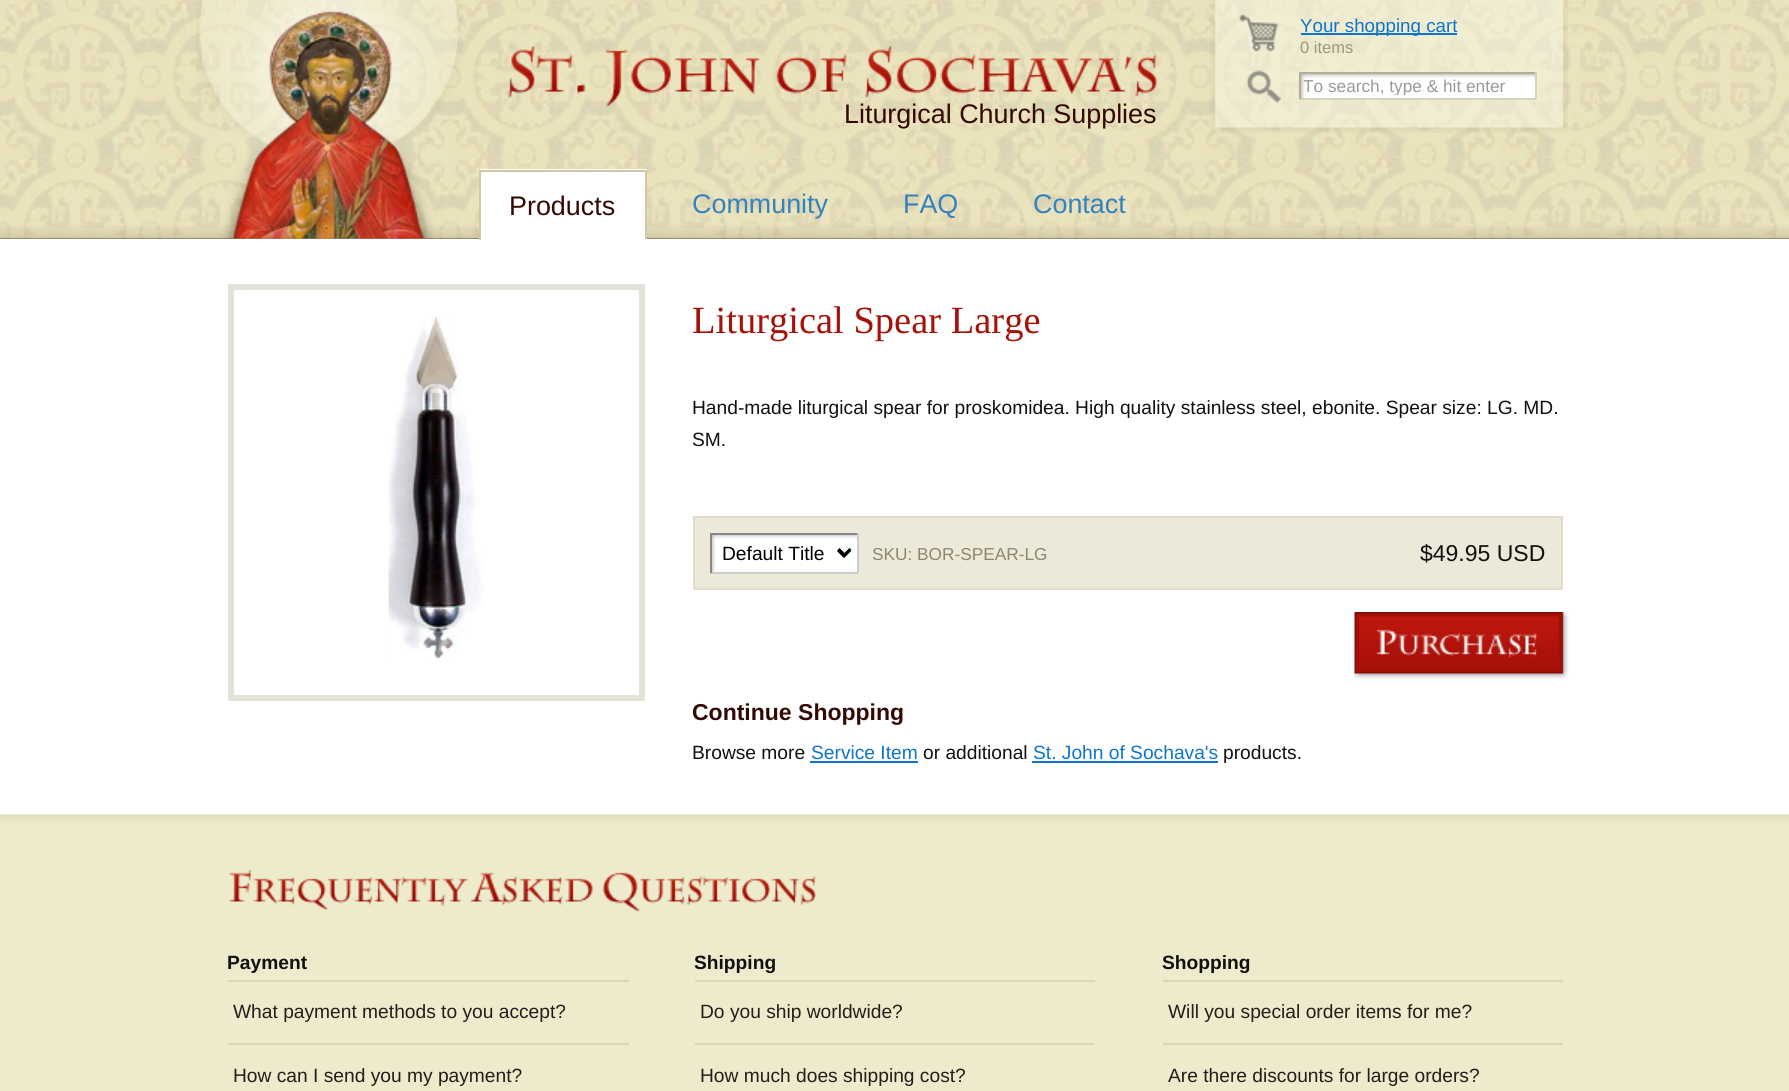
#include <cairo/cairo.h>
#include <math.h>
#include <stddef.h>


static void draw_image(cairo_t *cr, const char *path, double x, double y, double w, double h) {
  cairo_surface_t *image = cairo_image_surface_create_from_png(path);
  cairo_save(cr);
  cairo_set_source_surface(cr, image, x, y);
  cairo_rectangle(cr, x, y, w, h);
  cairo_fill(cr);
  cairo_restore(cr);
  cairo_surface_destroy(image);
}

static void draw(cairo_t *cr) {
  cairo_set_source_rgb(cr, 1, 1, 1);
  cairo_paint(cr);
  draw_image(cr, "images/1.png", 0, 238, 1789, 1);
  draw_image(cr, "images/2.png", 0, 0, 1789, 239);
  draw_image(cr, "images/9.png", 0, 225, 1789, 14);
  draw_image(cr, "images/3.png", 196, 0, 267, 239);
  draw_image(cr, "images/5.png", 1210, 0, 358, 133);
  draw_image(cr, "images/6.png", 1239, 12, 40, 40);
  cairo_set_source_rgb(cr, 14 / 255.0, 117 / 255.0, 204 / 255.0);
  cairo_rectangle(cr, 1301, 33, 156, 2);
  cairo_fill(cr);
  draw_image(cr, "images/7.png", 1246, 70, 35, 34);
  draw_image(cr, "images/8.png", 1301, 74, 234, 24);
  cairo_set_source_rgb(cr, 177 / 255.0, 175 / 255.0, 146 / 255.0);
  cairo_rectangle(cr, 1299, 72, 237, 2);
  cairo_fill(cr);
  cairo_set_source_rgb(cr, 214 / 255.0, 212 / 255.0, 180 / 255.0);
  cairo_rectangle(cr, 1535, 72, 2, 27);
  cairo_fill(cr);
  cairo_rectangle(cr, 1299, 98, 237, 2);
  cairo_fill(cr);
  cairo_set_source_rgb(cr, 177 / 255.0, 175 / 255.0, 146 / 255.0);
  cairo_rectangle(cr, 1299, 72, 2, 27);
  cairo_fill(cr);
  cairo_set_source_rgb(cr, 1, 1, 1);
  cairo_rectangle(cr, 480, 169, 167, 70);
  cairo_fill(cr);
  cairo_set_source_rgb(cr, 210 / 255.0, 198 / 255.0, 164 / 255.0);
  cairo_rectangle(cr, 479, 170, 168, 2);
  cairo_fill(cr);
  cairo_rectangle(cr, 645, 170, 2, 70);
  cairo_fill(cr);
  cairo_set_source_rgb(cr, 1, 1, 1);
  cairo_rectangle(cr, 645, 239, 2, 1);
  cairo_fill(cr);
  cairo_set_source_rgb(cr, 210 / 255.0, 198 / 255.0, 164 / 255.0);
  cairo_rectangle(cr, 479, 170, 2, 70);
  cairo_fill(cr);
  cairo_rectangle(cr, 231, 287, 411, 411);
  cairo_set_source_rgb(cr, 228 / 255.0, 226 / 255.0, 215 / 255.0);
  cairo_set_line_width(cr, 6);
  cairo_stroke(cr);
  draw_image(cr, "images/10.png", 388, 316, 96, 343);
  cairo_set_source_rgb(cr, 236 / 255.0, 233 / 255.0, 217 / 255.0);
  cairo_rectangle(cr, 694, 517, 868, 72);
  cairo_fill_preserve(cr);
  cairo_set_source_rgb(cr, 225 / 255.0, 221 / 255.0, 200 / 255.0);
  cairo_set_line_width(cr, 2);
  cairo_stroke(cr);
  draw_image(cr, "images/11.png", 712, 535, 145, 37);
  cairo_set_source_rgb(cr, 136 / 255.0, 136 / 255.0, 136 / 255.0);
  cairo_rectangle(cr, 710, 533, 148, 2);
  cairo_fill(cr);
  cairo_set_source_rgb(cr, 204 / 255.0, 204 / 255.0, 204 / 255.0);
  cairo_rectangle(cr, 857, 533, 2, 40);
  cairo_fill(cr);
  cairo_rectangle(cr, 710, 572, 148, 2);
  cairo_fill(cr);
  cairo_set_source_rgb(cr, 136 / 255.0, 136 / 255.0, 136 / 255.0);
  cairo_rectangle(cr, 710, 533, 2, 40);
  cairo_fill(cr);
  cairo_new_path(cr);
  cairo_move_to(cr, 838, 550);
  cairo_line_to(cr, 844, 556);
  cairo_line_to(cr, 850, 550);
  cairo_set_source_rgb(cr, 0, 0, 0);
  cairo_set_line_width(cr, 3);
  cairo_stroke(cr);
  draw_image(cr, "images/12.png", 1354, 612, 215, 67);
  cairo_set_source_rgb(cr, 14 / 255.0, 117 / 255.0, 204 / 255.0);
  cairo_rectangle(cr, 810, 761, 108, 2);
  cairo_fill(cr);
  cairo_rectangle(cr, 1032, 761, 186, 2);
  cairo_fill(cr);
  cairo_set_source_rgb(cr, 238 / 255.0, 235 / 255.0, 204 / 255.0);
  cairo_rectangle(cr, 0, 823, 1789, 268);
  cairo_fill(cr);
  draw_image(cr, "images/13.png", 0, 814, 1789, 9);
  draw_image(cr, "images/14.png", 229, 870, 588, 42);
  cairo_set_source_rgb(cr, 220 / 255.0, 215 / 255.0, 172 / 255.0);
  cairo_rectangle(cr, 228, 980, 401, 2);
  cairo_fill(cr);
  cairo_rectangle(cr, 228, 1043, 401, 2);
  cairo_fill(cr);
  cairo_rectangle(cr, 695, 980, 400, 2);
  cairo_fill(cr);
  cairo_rectangle(cr, 695, 1043, 400, 2);
  cairo_fill(cr);
  cairo_rectangle(cr, 1163, 980, 400, 2);
  cairo_fill(cr);
  cairo_rectangle(cr, 1163, 1043, 400, 2);
  cairo_fill(cr);
  cairo_select_font_face(cr, "Liberation Sans", CAIRO_FONT_SLANT_NORMAL, CAIRO_FONT_WEIGHT_NORMAL);
  cairo_set_font_size(cr, 18.75);
  cairo_set_source_rgb(cr, 14 / 255.0, 117 / 255.0, 204 / 255.0);
  cairo_move_to(cr, 1300, 32);
  cairo_show_text(cr, "Your shopping cart");
  cairo_set_font_size(cr, 16.5);
  cairo_set_source_rgb(cr, 157 / 255.0, 152 / 255.0, 119 / 255.0);
  cairo_move_to(cr, 1300, 53);
  cairo_show_text(cr, "0 items");
  cairo_save(cr);
  cairo_rectangle(cr, 1304, 77, 228, 18);
  cairo_clip(cr);
  cairo_set_font_size(cr, 17.25);
  cairo_set_source_rgb(cr, 153 / 255.0, 153 / 255.0, 153 / 255.0);
  cairo_move_to(cr, 1303, 92);
  cairo_show_text(cr, "To search, type & hit enter");
  cairo_restore(cr);
  cairo_set_font_size(cr, 26.9);
  cairo_set_source_rgb(cr, 53 / 255.0, 9 / 255.0, 3 / 255.0);
  cairo_move_to(cr, 844, 123);
  cairo_show_text(cr, "Liturgical Church Supplies");
  draw_image(cr, "images/4.png", 508, 46, 649, 61);
  cairo_move_to(cr, 509, 215);
  cairo_show_text(cr, "Products");
  cairo_set_source_rgb(cr, 52 / 255.0, 130 / 255.0, 190 / 255.0);
  cairo_move_to(cr, 692, 213);
  cairo_show_text(cr, "Community");
  cairo_move_to(cr, 903, 213);
  cairo_show_text(cr, "FAQ");
  cairo_move_to(cr, 1033, 213);
  cairo_show_text(cr, "Contact");
  cairo_select_font_face(cr, "Liberation Serif", CAIRO_FONT_SLANT_NORMAL, CAIRO_FONT_WEIGHT_NORMAL);
  cairo_set_font_size(cr, 38.5);
  cairo_set_source_rgb(cr, 166 / 255.0, 17 / 255.0, 8 / 255.0);
  cairo_move_to(cr, 692, 333);
  cairo_show_text(cr, "Liturgical Spear Large");
  cairo_select_font_face(cr, "Liberation Sans", CAIRO_FONT_SLANT_NORMAL, CAIRO_FONT_WEIGHT_NORMAL);
  cairo_set_font_size(cr, 19.2);
  cairo_set_source_rgb(cr, 17 / 255.0, 17 / 255.0, 17 / 255.0);
  cairo_move_to(cr, 692, 414);
  cairo_show_text(cr, "Hand-made liturgical spear for proskomidea. High quality stainless steel, ebonite. Spear size: LG. MD.");
  cairo_move_to(cr, 692, 446);
  cairo_show_text(cr, "SM.");
  cairo_set_source_rgb(cr, 0, 0, 0);
  cairo_move_to(cr, 722, 560);
  cairo_show_text(cr, "Default Title");
  cairo_set_font_size(cr, 17.25);
  cairo_set_source_rgb(cr, 139 / 255.0, 134 / 255.0, 111 / 255.0);
  cairo_move_to(cr, 872, 560);
  cairo_show_text(cr, "SKU: BOR-SPEAR-LG");
  cairo_set_font_size(cr, 23);
  cairo_set_source_rgb(cr, 17 / 255.0, 17 / 255.0, 17 / 255.0);
  cairo_move_to(cr, 1420, 561);
  cairo_show_text(cr, "$49.95 USD");
  cairo_select_font_face(cr, "Liberation Sans", CAIRO_FONT_SLANT_NORMAL, CAIRO_FONT_WEIGHT_BOLD);
  cairo_set_source_rgb(cr, 53 / 255.0, 9 / 255.0, 3 / 255.0);
  cairo_move_to(cr, 692, 720);
  cairo_show_text(cr, "Continue Shopping");
  cairo_select_font_face(cr, "Liberation Sans", CAIRO_FONT_SLANT_NORMAL, CAIRO_FONT_WEIGHT_NORMAL);
  cairo_set_font_size(cr, 19.2);
  cairo_set_source_rgb(cr, 17 / 255.0, 17 / 255.0, 17 / 255.0);
  cairo_move_to(cr, 692, 759);
  cairo_show_text(cr, "Browse more");
  cairo_set_source_rgb(cr, 14 / 255.0, 117 / 255.0, 204 / 255.0);
  cairo_move_to(cr, 811, 759);
  cairo_show_text(cr, "Service Item");
  cairo_set_source_rgb(cr, 17 / 255.0, 17 / 255.0, 17 / 255.0);
  cairo_move_to(cr, 923, 759);
  cairo_show_text(cr, "or additional");
  cairo_set_source_rgb(cr, 14 / 255.0, 117 / 255.0, 204 / 255.0);
  cairo_move_to(cr, 1033, 759);
  cairo_show_text(cr, "St. John of Sochava's");
  cairo_set_source_rgb(cr, 17 / 255.0, 17 / 255.0, 17 / 255.0);
  cairo_move_to(cr, 1223, 759);
  cairo_show_text(cr, "products.");
  cairo_select_font_face(cr, "Liberation Sans", CAIRO_FONT_SLANT_NORMAL, CAIRO_FONT_WEIGHT_BOLD);
  cairo_move_to(cr, 227, 969);
  cairo_show_text(cr, "Payment");
  cairo_select_font_face(cr, "Liberation Sans", CAIRO_FONT_SLANT_NORMAL, CAIRO_FONT_WEIGHT_NORMAL);
  cairo_set_source_rgb(cr, 37 / 255.0, 28 / 255.0, 27 / 255.0);
  cairo_move_to(cr, 233, 1018);
  cairo_show_text(cr, "What payment methods to you accept?");
  cairo_move_to(cr, 233, 1082);
  cairo_show_text(cr, "How can I send you my payment?");
  cairo_select_font_face(cr, "Liberation Sans", CAIRO_FONT_SLANT_NORMAL, CAIRO_FONT_WEIGHT_BOLD);
  cairo_set_source_rgb(cr, 17 / 255.0, 17 / 255.0, 17 / 255.0);
  cairo_move_to(cr, 694, 969);
  cairo_show_text(cr, "Shipping");
  cairo_select_font_face(cr, "Liberation Sans", CAIRO_FONT_SLANT_NORMAL, CAIRO_FONT_WEIGHT_NORMAL);
  cairo_set_source_rgb(cr, 37 / 255.0, 28 / 255.0, 27 / 255.0);
  cairo_move_to(cr, 700, 1018);
  cairo_show_text(cr, "Do you ship worldwide?");
  cairo_move_to(cr, 700, 1082);
  cairo_show_text(cr, "How much does shipping cost?");
  cairo_select_font_face(cr, "Liberation Sans", CAIRO_FONT_SLANT_NORMAL, CAIRO_FONT_WEIGHT_BOLD);
  cairo_set_source_rgb(cr, 17 / 255.0, 17 / 255.0, 17 / 255.0);
  cairo_move_to(cr, 1162, 969);
  cairo_show_text(cr, "Shopping");
  cairo_select_font_face(cr, "Liberation Sans", CAIRO_FONT_SLANT_NORMAL, CAIRO_FONT_WEIGHT_NORMAL);
  cairo_set_source_rgb(cr, 37 / 255.0, 28 / 255.0, 27 / 255.0);
  cairo_move_to(cr, 1168, 1018);
  cairo_show_text(cr, "Will you special order items for me?");
  cairo_move_to(cr, 1168, 1082);
  cairo_show_text(cr, "Are there discounts for large orders?");
}

int main(void) {
  cairo_surface_t *surface = cairo_image_surface_create(CAIRO_FORMAT_RGB24, 1789, 1091);
  cairo_t *cr = cairo_create(surface);
  cairo_font_options_t *options = cairo_font_options_create();
  cairo_font_options_set_hint_metrics(options, CAIRO_HINT_METRICS_OFF);
  cairo_font_options_set_hint_style(options, CAIRO_HINT_STYLE_NONE);
  cairo_set_font_options(cr, options);
  cairo_set_miter_limit(cr, 4);
  draw(cr);
  cairo_surface_write_to_png(surface, "out.png");
  cairo_font_options_destroy(options);
  cairo_destroy(cr);
  cairo_surface_destroy(surface);
  return 0;
}
